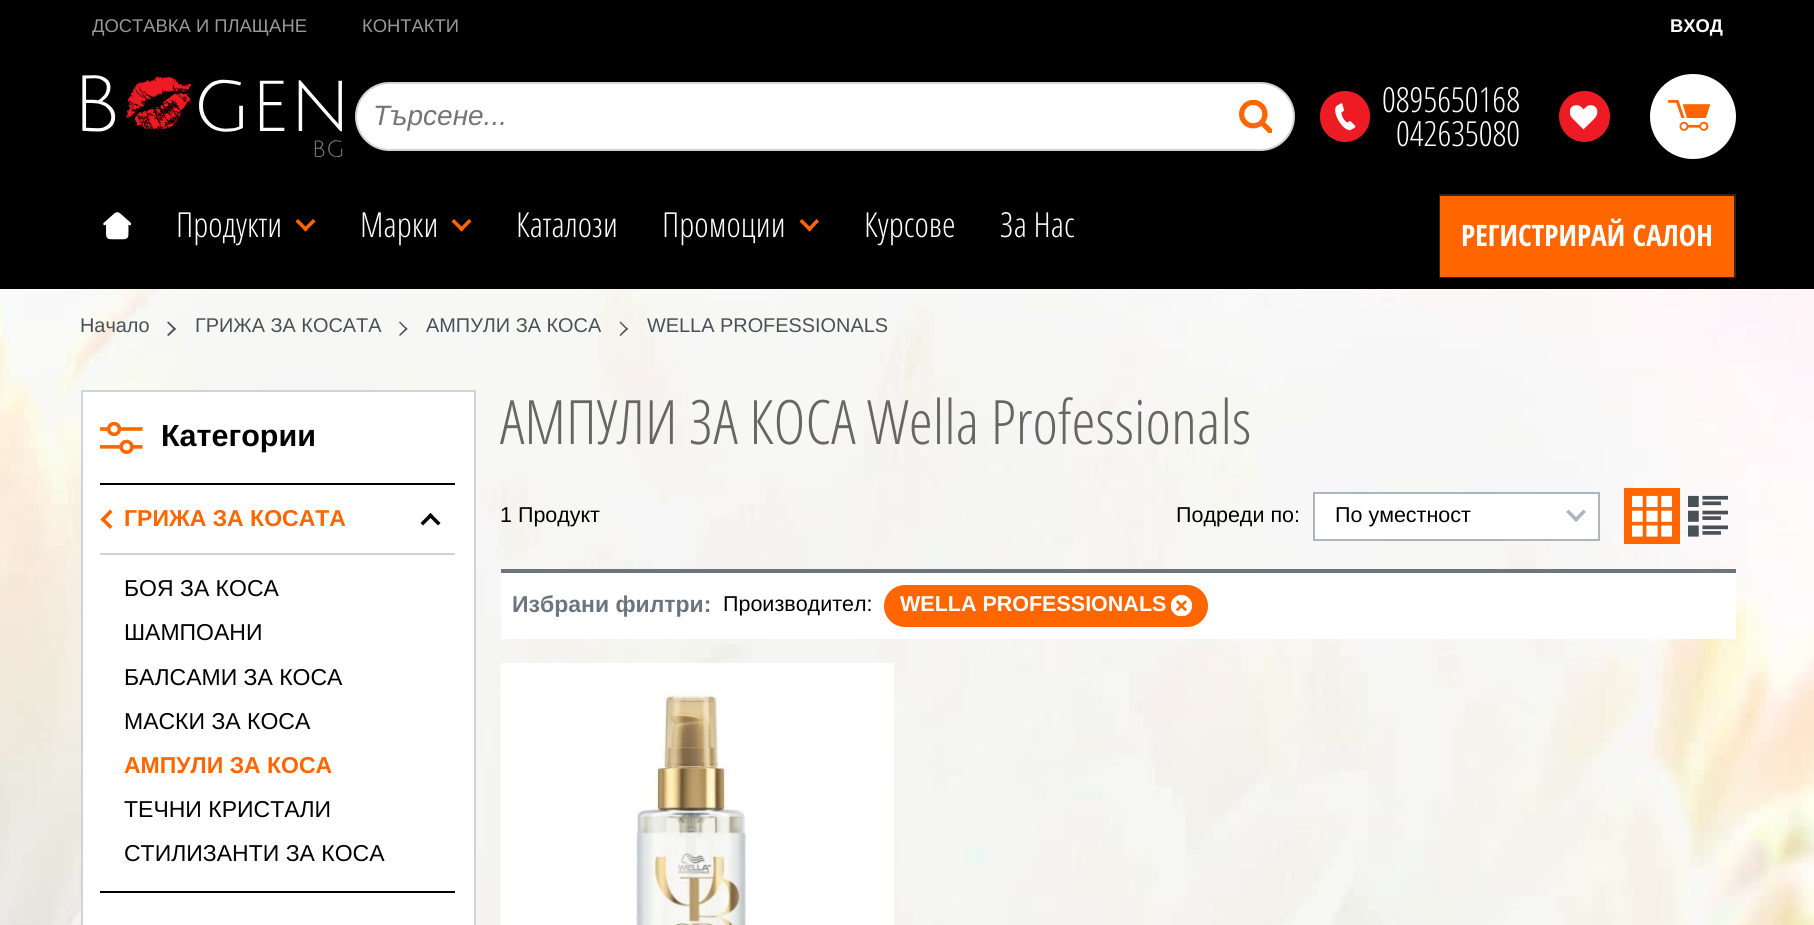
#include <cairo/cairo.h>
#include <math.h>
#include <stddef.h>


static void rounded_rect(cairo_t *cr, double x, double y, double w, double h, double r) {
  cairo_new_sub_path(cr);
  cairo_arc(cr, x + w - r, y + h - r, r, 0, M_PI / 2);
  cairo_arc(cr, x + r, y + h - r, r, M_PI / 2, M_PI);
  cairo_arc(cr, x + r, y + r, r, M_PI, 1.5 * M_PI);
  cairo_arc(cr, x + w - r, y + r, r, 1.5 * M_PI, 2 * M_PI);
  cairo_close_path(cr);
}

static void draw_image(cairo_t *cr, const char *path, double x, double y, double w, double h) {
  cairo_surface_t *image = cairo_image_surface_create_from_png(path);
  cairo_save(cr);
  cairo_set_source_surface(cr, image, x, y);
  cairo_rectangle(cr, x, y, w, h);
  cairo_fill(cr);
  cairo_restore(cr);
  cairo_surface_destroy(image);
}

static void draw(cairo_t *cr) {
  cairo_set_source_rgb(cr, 1, 1, 1);
  cairo_paint(cr);
  draw_image(cr, "images/1.png", 0, 289, 1814, 636);
  cairo_set_source_rgb(cr, 0, 0, 0);
  cairo_rectangle(cr, 0, 0, 1814, 289);
  cairo_fill(cr);
  draw_image(cr, "images/2.png", 82, 75, 261, 82);
  cairo_set_source_rgb(cr, 1, 1, 1);
  rounded_rect(cr, 356, 83, 938, 67, 33.5);
  cairo_fill_preserve(cr);
  cairo_set_source_rgb(cr, 206 / 255.0, 212 / 255.0, 218 / 255.0);
  cairo_stroke(cr);
  draw_image(cr, "images/3.png", 1239, 100, 33, 33);
  cairo_set_source_rgb(cr, 237 / 255.0, 28 / 255.0, 36 / 255.0);
  rounded_rect(cr, 1320, 91, 50, 51, 25);
  cairo_fill(cr);
  draw_image(cr, "images/4.png", 1335, 103, 21, 28);
  cairo_arc(cr, 1584.5, 116.5, 25.5, 0, 2 * M_PI);
  cairo_fill(cr);
  draw_image(cr, "images/5.png", 1570, 105, 28, 25);
  cairo_set_source_rgb(cr, 1, 1, 1);
  rounded_rect(cr, 1650, 74, 86, 85, 42.5);
  cairo_fill(cr);
  draw_image(cr, "images/6.png", 1668, 100, 42, 31);
  draw_image(cr, "images/7.png", 103, 212, 28, 28);
  cairo_set_source_rgb(cr, 1, 102 / 255.0, 0);
  cairo_new_path(cr);
  cairo_move_to(cr, 313, 219);
  cairo_line_to(cr, 315.5, 221.5);
  cairo_line_to(cr, 305.5, 231.5);
  cairo_line_to(cr, 303, 229);
  cairo_close_path(cr);
  cairo_fill(cr);
  cairo_new_path(cr);
  cairo_move_to(cr, 298, 219);
  cairo_line_to(cr, 308, 229);
  cairo_line_to(cr, 305.5, 231.5);
  cairo_line_to(cr, 295.5, 221.5);
  cairo_close_path(cr);
  cairo_fill(cr);
  cairo_new_path(cr);
  cairo_move_to(cr, 469, 219);
  cairo_line_to(cr, 471.5, 221.5);
  cairo_line_to(cr, 461.5, 231.5);
  cairo_line_to(cr, 459, 229);
  cairo_close_path(cr);
  cairo_fill(cr);
  cairo_new_path(cr);
  cairo_move_to(cr, 454, 219);
  cairo_line_to(cr, 464, 229);
  cairo_line_to(cr, 461.5, 231.5);
  cairo_line_to(cr, 451.5, 221.5);
  cairo_close_path(cr);
  cairo_fill(cr);
  cairo_new_path(cr);
  cairo_move_to(cr, 816.5, 219);
  cairo_line_to(cr, 819, 221.5);
  cairo_line_to(cr, 809.5, 231.5);
  cairo_line_to(cr, 807, 229);
  cairo_close_path(cr);
  cairo_fill(cr);
  cairo_new_path(cr);
  cairo_move_to(cr, 802, 219);
  cairo_line_to(cr, 812, 229);
  cairo_line_to(cr, 809.5, 231.5);
  cairo_line_to(cr, 799.5, 221.5);
  cairo_close_path(cr);
  cairo_fill(cr);
  cairo_set_source_rgb(cr, 38 / 255.0, 38 / 255.0, 38 / 255.0);
  cairo_rectangle(cr, 1439, 194, 297, 84);
  cairo_fill(cr);
  cairo_set_source_rgb(cr, 1, 102 / 255.0, 0);
  cairo_rectangle(cr, 1440, 196, 294, 81);
  cairo_fill(cr);
  cairo_set_source_rgb(cr, 73 / 255.0, 80 / 255.0, 87 / 255.0);
  cairo_new_path(cr);
  cairo_move_to(cr, 167, 322.5);
  cairo_line_to(cr, 168.5, 321.5);
  cairo_line_to(cr, 176, 329);
  cairo_line_to(cr, 174.5, 330);
  cairo_close_path(cr);
  cairo_fill(cr);
  cairo_new_path(cr);
  cairo_move_to(cr, 167, 335);
  cairo_line_to(cr, 174.5, 327.5);
  cairo_line_to(cr, 176, 329);
  cairo_line_to(cr, 168.5, 336);
  cairo_close_path(cr);
  cairo_fill(cr);
  cairo_new_path(cr);
  cairo_move_to(cr, 399, 322.5);
  cairo_line_to(cr, 400, 321.5);
  cairo_line_to(cr, 407.5, 329);
  cairo_line_to(cr, 406.5, 330);
  cairo_close_path(cr);
  cairo_fill(cr);
  cairo_new_path(cr);
  cairo_move_to(cr, 399, 335);
  cairo_line_to(cr, 406.5, 327.5);
  cairo_line_to(cr, 407.5, 329);
  cairo_line_to(cr, 400, 336);
  cairo_close_path(cr);
  cairo_fill(cr);
  cairo_new_path(cr);
  cairo_move_to(cr, 619.5, 322.5);
  cairo_line_to(cr, 620.5, 321.5);
  cairo_line_to(cr, 628, 329);
  cairo_line_to(cr, 627, 330);
  cairo_close_path(cr);
  cairo_fill(cr);
  cairo_new_path(cr);
  cairo_move_to(cr, 619.5, 335);
  cairo_line_to(cr, 627, 327.5);
  cairo_line_to(cr, 628, 329);
  cairo_line_to(cr, 620.5, 336);
  cairo_close_path(cr);
  cairo_fill(cr);
  cairo_set_source_rgb(cr, 1, 1, 1);
  cairo_rectangle(cr, 82, 391, 393, 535);
  cairo_fill_preserve(cr);
  cairo_set_source_rgb(cr, 206 / 255.0, 212 / 255.0, 218 / 255.0);
  cairo_stroke(cr);
  cairo_set_source_rgb(cr, 0, 0, 0);
  cairo_rectangle(cr, 100, 483, 355, 2);
  cairo_fill(cr);
  draw_image(cr, "images/8.png", 100, 421, 43, 33);
  cairo_rectangle(cr, 100, 891, 355, 2);
  cairo_fill(cr);
  cairo_set_source_rgb(cr, 206 / 255.0, 212 / 255.0, 218 / 255.0);
  cairo_rectangle(cr, 100, 553, 355, 2);
  cairo_fill(cr);
  cairo_set_source_rgb(cr, 1, 102 / 255.0, 0);
  cairo_new_path(cr);
  cairo_move_to(cr, 112.5, 526.5);
  cairo_line_to(cr, 110, 529);
  cairo_line_to(cr, 100.5, 519.5);
  cairo_line_to(cr, 103, 517);
  cairo_close_path(cr);
  cairo_fill(cr);
  cairo_new_path(cr);
  cairo_move_to(cr, 112.5, 512);
  cairo_line_to(cr, 103, 522);
  cairo_line_to(cr, 100.5, 519.5);
  cairo_line_to(cr, 110, 509.5);
  cairo_close_path(cr);
  cairo_fill(cr);
  cairo_set_source_rgb(cr, 0, 0, 0);
  cairo_new_path(cr);
  cairo_move_to(cr, 423, 525.5);
  cairo_line_to(cr, 420.5, 523);
  cairo_line_to(cr, 430.5, 513);
  cairo_line_to(cr, 433, 515.5);
  cairo_close_path(cr);
  cairo_fill(cr);
  cairo_new_path(cr);
  cairo_move_to(cr, 438, 525.5);
  cairo_line_to(cr, 428, 515.5);
  cairo_line_to(cr, 430.5, 513);
  cairo_line_to(cr, 440.5, 523);
  cairo_close_path(cr);
  cairo_fill(cr);
  cairo_set_source_rgb(cr, 1, 1, 1);
  cairo_rectangle(cr, 1314, 493, 285, 47);
  cairo_fill_preserve(cr);
  cairo_set_source_rgb(cr, 173 / 255.0, 181 / 255.0, 189 / 255.0);
  cairo_stroke(cr);
  cairo_new_path(cr);
  cairo_move_to(cr, 1583.5, 509.5);
  cairo_line_to(cr, 1586, 512);
  cairo_line_to(cr, 1576, 522);
  cairo_line_to(cr, 1573.5, 519.5);
  cairo_close_path(cr);
  cairo_fill(cr);
  cairo_new_path(cr);
  cairo_move_to(cr, 1568.5, 509.5);
  cairo_line_to(cr, 1578.5, 519.5);
  cairo_line_to(cr, 1576, 522);
  cairo_line_to(cr, 1566, 512);
  cairo_close_path(cr);
  cairo_fill(cr);
  cairo_set_source_rgb(cr, 1, 102 / 255.0, 0);
  cairo_rectangle(cr, 1624, 488, 56, 56);
  cairo_fill(cr);
  draw_image(cr, "images/9.png", 1632, 495, 40, 42);
  draw_image(cr, "images/10.png", 1688, 495, 40, 42);
  cairo_set_source_rgb(cr, 1, 1, 1);
  cairo_rectangle(cr, 501, 573, 1235, 66);
  cairo_fill(cr);
  cairo_set_source_rgb(cr, 108 / 255.0, 117 / 255.0, 125 / 255.0);
  cairo_rectangle(cr, 501, 569, 1235, 4);
  cairo_fill(cr);
  cairo_set_source_rgb(cr, 1, 102 / 255.0, 0);
  rounded_rect(cr, 884, 585, 324, 42, 21);
  cairo_fill(cr);
  draw_image(cr, "images/11.png", 1171, 595, 21, 21);
  cairo_set_source_rgb(cr, 1, 1, 1);
  cairo_rectangle(cr, 501, 663, 393, 262);
  cairo_fill(cr);
  draw_image(cr, "images/12.png", 500, 663, 252, 262);
  cairo_select_font_face(cr, "Liberation Sans", CAIRO_FONT_SLANT_NORMAL, CAIRO_FONT_WEIGHT_NORMAL);
  cairo_set_font_size(cr, 18.4);
  cairo_set_source_rgb(cr, 153 / 255.0, 153 / 255.0, 153 / 255.0);
  cairo_move_to(cr, 92, 32);
  cairo_show_text(cr, "ДОСТАВКА И ПЛАЩАНЕ");
  cairo_move_to(cr, 362, 32);
  cairo_show_text(cr, "КОНТАКТИ");
  cairo_select_font_face(cr, "Liberation Sans", CAIRO_FONT_SLANT_NORMAL, CAIRO_FONT_WEIGHT_BOLD);
  cairo_set_source_rgb(cr, 1, 1, 1);
  cairo_move_to(cr, 1670, 32);
  cairo_show_text(cr, "ВХОД");
  cairo_select_font_face(cr, "Liberation Sans", CAIRO_FONT_SLANT_ITALIC, CAIRO_FONT_WEIGHT_NORMAL);
  cairo_set_font_size(cr, 28);
  cairo_set_source_rgb(cr, 117 / 255.0, 117 / 255.0, 117 / 255.0);
  cairo_move_to(cr, 373, 125);
  cairo_show_text(cr, "Търсене...");
  cairo_select_font_face(cr, "Open Sans Condensed Light", CAIRO_FONT_SLANT_NORMAL, CAIRO_FONT_WEIGHT_NORMAL);
  cairo_set_font_size(cr, 34.5);
  cairo_set_source_rgb(cr, 1, 1, 1);
  cairo_move_to(cr, 1382, 112);
  cairo_show_text(cr, "0895650168");
  cairo_move_to(cr, 1396, 146);
  cairo_show_text(cr, "042635080");
  cairo_move_to(cr, 176, 237);
  cairo_show_text(cr, "Продукти");
  cairo_move_to(cr, 360, 237);
  cairo_show_text(cr, "Марки");
  cairo_move_to(cr, 516, 237);
  cairo_show_text(cr, "Каталози");
  cairo_move_to(cr, 662, 237);
  cairo_show_text(cr, "Промоции");
  cairo_move_to(cr, 864, 237);
  cairo_show_text(cr, "Курсове");
  cairo_move_to(cr, 1000, 237);
  cairo_show_text(cr, "За Нас");
  cairo_select_font_face(cr, "Open Sans Condensed", CAIRO_FONT_SLANT_NORMAL, CAIRO_FONT_WEIGHT_BOLD);
  cairo_set_font_size(cr, 29.5);
  cairo_move_to(cr, 1461, 246);
  cairo_show_text(cr, "РЕГИСТРИРАЙ САЛОН");
  cairo_select_font_face(cr, "Liberation Sans", CAIRO_FONT_SLANT_NORMAL, CAIRO_FONT_WEIGHT_NORMAL);
  cairo_set_font_size(cr, 19.9);
  cairo_set_source_rgb(cr, 73 / 255.0, 80 / 255.0, 87 / 255.0);
  cairo_move_to(cr, 80, 332);
  cairo_show_text(cr, "Начало");
  cairo_move_to(cr, 195, 332);
  cairo_show_text(cr, "ГРИЖА ЗА КОСАТА");
  cairo_move_to(cr, 426, 332);
  cairo_show_text(cr, "АМПУЛИ ЗА КОСА");
  cairo_move_to(cr, 647, 332);
  cairo_show_text(cr, "WELLA PROFESSIONALS");
  cairo_select_font_face(cr, "Liberation Sans", CAIRO_FONT_SLANT_NORMAL, CAIRO_FONT_WEIGHT_BOLD);
  cairo_set_font_size(cr, 30.5);
  cairo_set_source_rgb(cr, 0, 0, 0);
  cairo_move_to(cr, 161, 446);
  cairo_show_text(cr, "Категории");
  cairo_set_font_size(cr, 23);
  cairo_set_source_rgb(cr, 1, 102 / 255.0, 0);
  cairo_move_to(cr, 124, 526);
  cairo_show_text(cr, "ГРИЖА ЗА КОСАТА");
  cairo_select_font_face(cr, "Liberation Sans", CAIRO_FONT_SLANT_NORMAL, CAIRO_FONT_WEIGHT_NORMAL);
  cairo_set_source_rgb(cr, 0, 0, 0);
  cairo_move_to(cr, 124, 596);
  cairo_show_text(cr, "БОЯ ЗА КОСА");
  cairo_move_to(cr, 124, 640);
  cairo_show_text(cr, "ШАМПОАНИ");
  cairo_move_to(cr, 124, 685);
  cairo_show_text(cr, "БАЛСАМИ ЗА КОСА");
  cairo_move_to(cr, 124, 729);
  cairo_show_text(cr, "МАСКИ ЗА КОСА");
  cairo_select_font_face(cr, "Liberation Sans", CAIRO_FONT_SLANT_NORMAL, CAIRO_FONT_WEIGHT_BOLD);
  cairo_set_source_rgb(cr, 1, 102 / 255.0, 0);
  cairo_move_to(cr, 124, 773);
  cairo_show_text(cr, "АМПУЛИ ЗА КОСА");
  cairo_select_font_face(cr, "Liberation Sans", CAIRO_FONT_SLANT_NORMAL, CAIRO_FONT_WEIGHT_NORMAL);
  cairo_set_source_rgb(cr, 0, 0, 0);
  cairo_move_to(cr, 124, 817);
  cairo_show_text(cr, "ТЕЧНИ КРИСТАЛИ");
  cairo_move_to(cr, 124, 861);
  cairo_show_text(cr, "СТИЛИЗАНТИ ЗА КОСА");
  cairo_select_font_face(cr, "Open Sans Condensed Light", CAIRO_FONT_SLANT_NORMAL, CAIRO_FONT_WEIGHT_NORMAL);
  cairo_set_font_size(cr, 61.25);
  cairo_set_source_rgb(cr, 102 / 255.0, 102 / 255.0, 102 / 255.0);
  cairo_move_to(cr, 500, 444);
  cairo_show_text(cr, "АМПУЛИ ЗА КОСА Wella Professionals");
  cairo_select_font_face(cr, "Liberation Sans", CAIRO_FONT_SLANT_NORMAL, CAIRO_FONT_WEIGHT_NORMAL);
  cairo_set_font_size(cr, 21.5);
  cairo_set_source_rgb(cr, 0, 0, 0);
  cairo_move_to(cr, 500, 522);
  cairo_show_text(cr, "1 Продукт");
  cairo_move_to(cr, 1176, 522);
  cairo_show_text(cr, "Подреди по:");
  cairo_move_to(cr, 1335, 522);
  cairo_show_text(cr, "По уместност");
  cairo_select_font_face(cr, "Liberation Sans", CAIRO_FONT_SLANT_NORMAL, CAIRO_FONT_WEIGHT_BOLD);
  cairo_set_font_size(cr, 23);
  cairo_set_source_rgb(cr, 108 / 255.0, 117 / 255.0, 125 / 255.0);
  cairo_move_to(cr, 512, 612);
  cairo_show_text(cr, "Избрани филтри:");
  cairo_select_font_face(cr, "Liberation Sans", CAIRO_FONT_SLANT_NORMAL, CAIRO_FONT_WEIGHT_NORMAL);
  cairo_set_font_size(cr, 21.5);
  cairo_set_source_rgb(cr, 0, 0, 0);
  cairo_move_to(cr, 723, 611);
  cairo_show_text(cr, "Производител:");
  cairo_select_font_face(cr, "Liberation Sans", CAIRO_FONT_SLANT_NORMAL, CAIRO_FONT_WEIGHT_BOLD);
  cairo_set_source_rgb(cr, 1, 1, 1);
  cairo_move_to(cr, 900, 611);
  cairo_show_text(cr, "WELLA PROFESSIONALS");
}

int main(void) {
  cairo_surface_t *surface = cairo_image_surface_create(CAIRO_FORMAT_RGB24, 1814, 925);
  cairo_t *cr = cairo_create(surface);
  cairo_font_options_t *options = cairo_font_options_create();
  cairo_font_options_set_hint_metrics(options, CAIRO_HINT_METRICS_OFF);
  cairo_font_options_set_hint_style(options, CAIRO_HINT_STYLE_NONE);
  cairo_set_font_options(cr, options);
  cairo_set_miter_limit(cr, 4);
  draw(cr);
  cairo_surface_write_to_png(surface, "out.png");
  cairo_font_options_destroy(options);
  cairo_destroy(cr);
  cairo_surface_destroy(surface);
  return 0;
}
